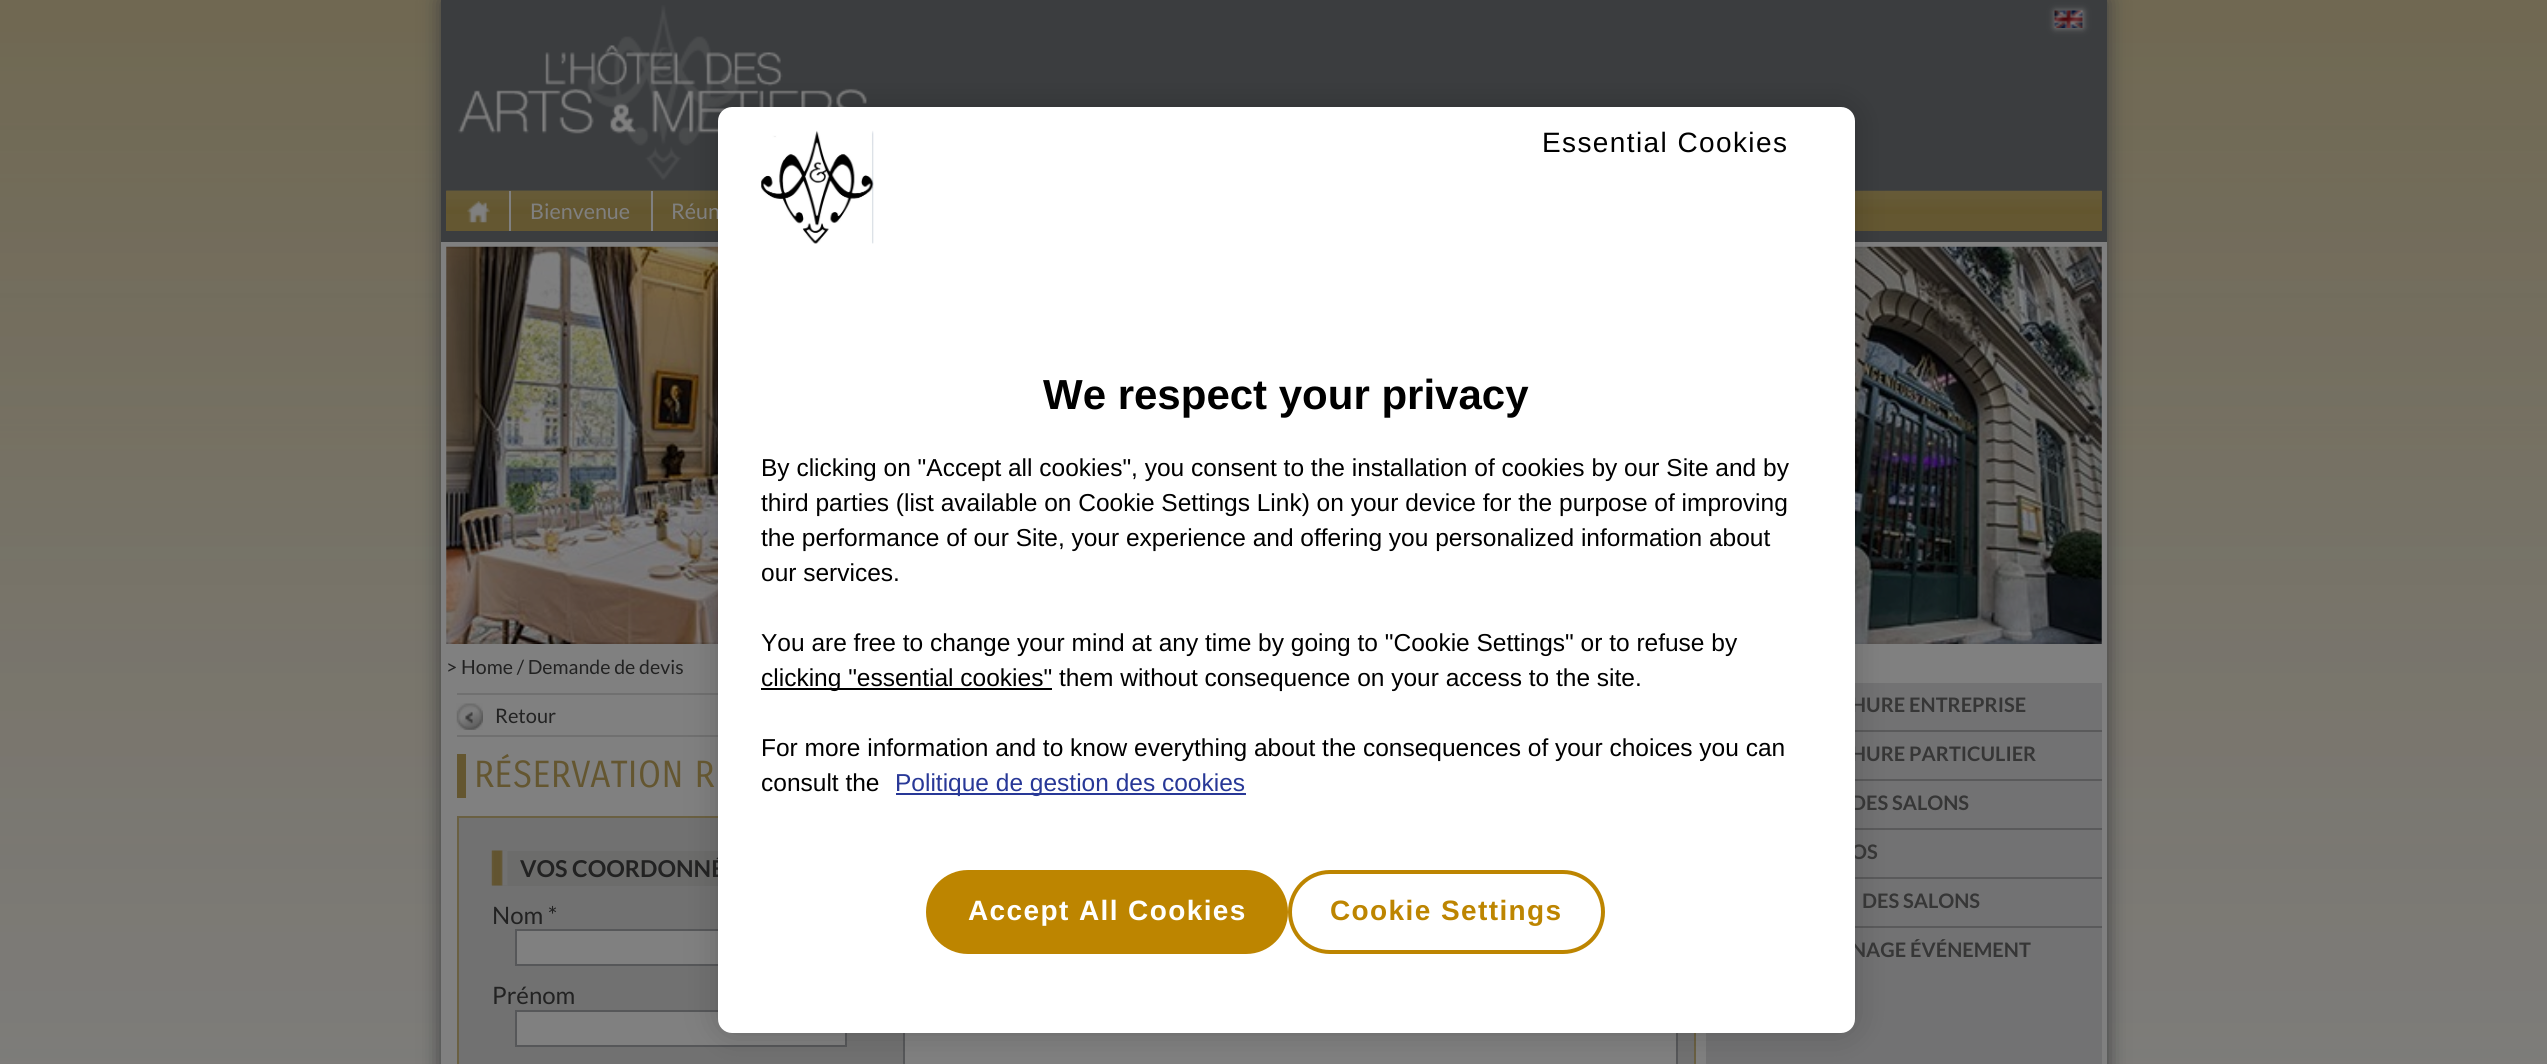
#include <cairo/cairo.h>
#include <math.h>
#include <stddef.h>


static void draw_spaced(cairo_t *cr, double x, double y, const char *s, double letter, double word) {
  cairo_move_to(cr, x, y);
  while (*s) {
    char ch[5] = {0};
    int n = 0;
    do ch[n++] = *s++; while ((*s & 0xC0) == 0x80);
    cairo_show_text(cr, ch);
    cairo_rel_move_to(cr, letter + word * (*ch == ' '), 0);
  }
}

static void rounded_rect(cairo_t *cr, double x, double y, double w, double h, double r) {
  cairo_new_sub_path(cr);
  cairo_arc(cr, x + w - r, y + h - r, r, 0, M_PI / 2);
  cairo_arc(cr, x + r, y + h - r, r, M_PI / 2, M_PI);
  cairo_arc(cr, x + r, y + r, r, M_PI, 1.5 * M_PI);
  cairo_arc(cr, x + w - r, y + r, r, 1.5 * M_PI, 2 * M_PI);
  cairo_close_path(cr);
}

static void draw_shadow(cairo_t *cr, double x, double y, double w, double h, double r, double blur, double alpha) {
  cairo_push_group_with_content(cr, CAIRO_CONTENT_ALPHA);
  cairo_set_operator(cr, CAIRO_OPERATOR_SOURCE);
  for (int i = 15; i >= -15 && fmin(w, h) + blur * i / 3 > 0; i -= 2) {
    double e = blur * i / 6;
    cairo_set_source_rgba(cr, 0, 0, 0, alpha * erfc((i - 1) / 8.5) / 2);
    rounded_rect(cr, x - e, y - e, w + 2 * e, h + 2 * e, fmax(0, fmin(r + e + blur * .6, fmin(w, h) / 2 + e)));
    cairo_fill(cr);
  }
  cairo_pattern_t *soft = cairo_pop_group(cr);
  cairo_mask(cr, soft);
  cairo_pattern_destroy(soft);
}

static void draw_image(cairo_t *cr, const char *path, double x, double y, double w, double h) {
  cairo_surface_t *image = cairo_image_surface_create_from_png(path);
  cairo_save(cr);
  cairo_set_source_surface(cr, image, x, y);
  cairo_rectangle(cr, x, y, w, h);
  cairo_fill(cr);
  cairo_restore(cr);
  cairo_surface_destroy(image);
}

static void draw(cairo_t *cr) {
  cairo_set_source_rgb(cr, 1, 1, 1);
  cairo_paint(cr);
  draw_image(cr, "images/1.png", 0, 0, 2547, 1064);
  cairo_set_source_rgb(cr, 59 / 255.0, 61 / 255.0, 63 / 255.0);
  draw_shadow(cr, 441, 0, 1666, 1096, 0, 10.5, 1);
  cairo_set_source_rgb(cr, 59 / 255.0, 61 / 255.0, 63 / 255.0);
  cairo_rectangle(cr, 441, 0, 1666, 242);
  cairo_fill(cr);
  draw_image(cr, "images/3.png", 458, 5, 409, 175);
  cairo_set_source_rgb(cr, 100 / 255.0, 87 / 255.0, 49 / 255.0);
  cairo_rectangle(cr, 1855, 191, 247, 40);
  cairo_fill(cr);
  draw_image(cr, "images/5.png", 446, 190, 1656, 24);
  cairo_rectangle(cr, 653, 214, 65, 17);
  cairo_fill(cr);
  draw_image(cr, "images/9.png", 651, 190, 67, 24);
  cairo_set_source_rgb(cr, 128 / 255.0, 128 / 255.0, 128 / 255.0);
  cairo_rectangle(cr, 441, 242, 1666, 822);
  cairo_fill(cr);
  draw_image(cr, "images/10.png", 446, 246, 1656, 398);
  cairo_set_source_rgb(cr, 112 / 255.0, 112 / 255.0, 112 / 255.0);
  cairo_rectangle(cr, 457, 693, 261, 2);
  cairo_fill(cr);
  cairo_rectangle(cr, 457, 735, 261, 2);
  cairo_fill(cr);
  cairo_set_source_rgb(cr, 113 / 255.0, 113 / 255.0, 113 / 255.0);
  cairo_rectangle(cr, 458, 817, 1237, 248);
  cairo_fill_preserve(cr);
  cairo_set_source_rgb(cr, 106 / 255.0, 96 / 255.0, 66 / 255.0);
  cairo_stroke(cr);
  cairo_set_source_rgb(cr, 108 / 255.0, 108 / 255.0, 107 / 255.0);
  cairo_rectangle(cr, 492, 851, 226, 35);
  cairo_fill(cr);
  cairo_set_source_rgb(cr, 128 / 255.0, 128 / 255.0, 128 / 255.0);
  cairo_rectangle(cr, 517, 931, 201, 33);
  cairo_fill(cr);
  cairo_rectangle(cr, 516, 930, 330, 35);
  cairo_set_source_rgb(cr, 86 / 255.0, 87 / 255.0, 89 / 255.0);
  cairo_stroke(cr);
  cairo_set_source_rgb(cr, 128 / 255.0, 128 / 255.0, 128 / 255.0);
  cairo_rectangle(cr, 516, 1011, 330, 35);
  cairo_fill_preserve(cr);
  cairo_set_source_rgb(cr, 86 / 255.0, 87 / 255.0, 89 / 255.0);
  cairo_stroke(cr);
  cairo_set_source_rgb(cr, 128 / 255.0, 128 / 255.0, 128 / 255.0);
  cairo_rectangle(cr, 905, 1033, 771, 31);
  cairo_fill(cr);
  cairo_rectangle(cr, 904, 999, 773, 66);
  cairo_set_source_rgb(cr, 86 / 255.0, 87 / 255.0, 89 / 255.0);
  cairo_stroke(cr);
  cairo_set_source_rgb(cr, 114 / 255.0, 114 / 255.0, 115 / 255.0);
  cairo_rectangle(cr, 1706, 683, 396, 381);
  cairo_fill(cr);
  cairo_set_source_rgb(cr, 90 / 255.0, 90 / 255.0, 91 / 255.0);
  cairo_rectangle(cr, 1855, 730, 247, 2);
  cairo_fill(cr);
  cairo_rectangle(cr, 1855, 779, 247, 2);
  cairo_fill(cr);
  cairo_rectangle(cr, 1855, 828, 247, 2);
  cairo_fill(cr);
  cairo_rectangle(cr, 1855, 877, 247, 2);
  cairo_fill(cr);
  cairo_rectangle(cr, 1855, 926, 247, 2);
  cairo_fill(cr);
  cairo_set_source_rgb(cr, 0, 0, 0);
  draw_shadow(cr, 718, 107, 1137, 926, 14, 16, 0.2);
  cairo_set_source_rgb(cr, 128 / 255.0, 128 / 255.0, 128 / 255.0);
  draw_shadow(cr, 2055, 11, 28, 17, 0, 3.5, 1);
  draw_image(cr, "images/4.png", 2054, 10, 29, 18);
  cairo_set_source_rgb(cr, 100 / 255.0, 87 / 255.0, 49 / 255.0);
  cairo_rectangle(cr, 446, 191, 63, 40);
  cairo_fill(cr);
  draw_image(cr, "images/6.png", 446, 190, 64, 24);
  draw_image(cr, "images/7.png", 467, 201, 23, 22);
  cairo_rectangle(cr, 511, 214, 140, 17);
  cairo_fill(cr);
  draw_image(cr, "images/8.png", 509, 190, 142, 24);
  cairo_set_source_rgb(cr, 128 / 255.0, 128 / 255.0, 128 / 255.0);
  cairo_rectangle(cr, 509, 191, 2, 40);
  cairo_fill(cr);
  cairo_rectangle(cr, 651, 191, 2, 40);
  cairo_fill(cr);
  draw_image(cr, "images/11.png", 456, 703, 27, 27);
  cairo_set_source_rgb(cr, 100 / 255.0, 86 / 255.0, 48 / 255.0);
  cairo_rectangle(cr, 457, 754, 9, 44);
  cairo_fill(cr);
  draw_image(cr, "images/12.png", 491, 850, 17, 36);
  cairo_select_font_face(cr, "Lato", CAIRO_FONT_SLANT_NORMAL, CAIRO_FONT_WEIGHT_NORMAL);
  cairo_set_font_size(cr, 21.5);
  cairo_set_source_rgb(cr, 128 / 255.0, 128 / 255.0, 128 / 255.0);
  cairo_move_to(cr, 530, 219);
  cairo_show_text(cr, "Bienvenue");
  cairo_move_to(cr, 671, 219);
  cairo_show_text(cr, "Réun");
  cairo_set_font_size(cr, 19.5);
  cairo_set_source_rgb(cr, 34 / 255.0, 34 / 255.0, 34 / 255.0);
  cairo_move_to(cr, 446, 674);
  cairo_show_text(cr, "> Home / Demande de devis");
  cairo_set_font_size(cr, 20);
  cairo_move_to(cr, 495, 723);
  cairo_show_text(cr, "Retour");
  cairo_select_font_face(cr, "Carrois Gothic", CAIRO_FONT_SLANT_NORMAL, CAIRO_FONT_WEIGHT_NORMAL);
  cairo_set_font_size(cr, 36.5);
  cairo_set_source_rgb(cr, 100 / 255.0, 86 / 255.0, 48 / 255.0);
  cairo_move_to(cr, 474, 787);
  cairo_show_text(cr, "RÉSERVATION R");
  cairo_select_font_face(cr, "Lato", CAIRO_FONT_SLANT_NORMAL, CAIRO_FONT_WEIGHT_BOLD);
  cairo_set_font_size(cr, 23.25);
  cairo_set_source_rgb(cr, 34 / 255.0, 34 / 255.0, 34 / 255.0);
  cairo_move_to(cr, 520, 877);
  cairo_show_text(cr, "VOS COORDONNÉ");
  cairo_select_font_face(cr, "Lato", CAIRO_FONT_SLANT_NORMAL, CAIRO_FONT_WEIGHT_NORMAL);
  cairo_set_font_size(cr, 24);
  cairo_move_to(cr, 492, 924);
  cairo_show_text(cr, "Nom *");
  cairo_move_to(cr, 492, 1004);
  cairo_show_text(cr, "Prénom");
  cairo_select_font_face(cr, "Lato", CAIRO_FONT_SLANT_NORMAL, CAIRO_FONT_WEIGHT_BOLD);
  cairo_set_font_size(cr, 20);
  cairo_set_source_rgb(cr, 54 / 255.0, 54 / 255.0, 54 / 255.0);
  cairo_move_to(cr, 1851, 712);
  cairo_show_text(cr, "HURE ENTREPRISE");
  cairo_move_to(cr, 1851, 761);
  cairo_show_text(cr, "HURE PARTICULIER");
  cairo_move_to(cr, 1851, 810);
  cairo_show_text(cr, "DES SALONS");
  cairo_move_to(cr, 1851, 859);
  cairo_show_text(cr, "OS");
  cairo_move_to(cr, 1862, 908);
  cairo_show_text(cr, "DES SALONS");
  cairo_move_to(cr, 1851, 957);
  cairo_show_text(cr, "NAGE ÉVÉNEMENT");
  cairo_set_source_rgb(cr, 1, 1, 1);
  rounded_rect(cr, 718, 107, 1137, 926, 14);
  cairo_fill(cr);
  cairo_select_font_face(cr, "Liberation Sans", CAIRO_FONT_SLANT_NORMAL, CAIRO_FONT_WEIGHT_NORMAL);
  cairo_set_font_size(cr, 28);
  cairo_set_source_rgb(cr, 0, 0, 0);
  draw_spaced(cr, 1542, 152, "Essential Cookies", 1.4, 0);
  cairo_set_source_rgb(cr, 189 / 255.0, 133 / 255.0, 0);
  rounded_rect(cr, 928, 872, 358, 80, 40);
  cairo_fill_preserve(cr);
  cairo_set_line_width(cr, 4);
  cairo_stroke(cr);
  cairo_select_font_face(cr, "Liberation Sans", CAIRO_FONT_SLANT_NORMAL, CAIRO_FONT_WEIGHT_BOLD);
  cairo_set_source_rgb(cr, 1, 1, 1);
  draw_spaced(cr, 968, 920, "Accept All Cookies", 1.4, 0);
  rounded_rect(cr, 1290, 872, 313, 80, 40);
  cairo_set_source_rgb(cr, 189 / 255.0, 133 / 255.0, 0);
  cairo_stroke(cr);
  draw_spaced(cr, 1330, 920, "Cookie Settings", 1.4, 0);
  cairo_set_font_size(cr, 42);
  cairo_set_source_rgb(cr, 0, 0, 0);
  cairo_move_to(cr, 1043, 409);
  cairo_show_text(cr, "We respect your privacy");
  draw_image(cr, "images/2.png", 761, 130, 113, 114);
  cairo_set_source_rgb(cr, 40 / 255.0, 56 / 255.0, 151 / 255.0);
  cairo_rectangle(cr, 896, 793, 350, 2);
  cairo_fill(cr);
  cairo_select_font_face(cr, "Liberation Sans", CAIRO_FONT_SLANT_NORMAL, CAIRO_FONT_WEIGHT_NORMAL);
  cairo_set_font_size(cr, 24.5);
  cairo_move_to(cr, 895, 791);
  cairo_show_text(cr, "Politique de gestion des cookies");
  cairo_set_source_rgb(cr, 0, 0, 0);
  cairo_move_to(cr, 761, 791);
  cairo_show_text(cr, "consult the");
  cairo_move_to(cr, 761, 756);
  cairo_show_text(cr, "For more information and to know everything about the consequences of your choices you can");
  cairo_rectangle(cr, 761, 688, 291, 2);
  cairo_fill(cr);
  cairo_move_to(cr, 761, 686);
  cairo_show_text(cr, "clicking \"essential cookies\" them without consequence on your access to the site.");
  cairo_move_to(cr, 761, 651);
  cairo_show_text(cr, "You are free to change your mind at any time by going to \"Cookie Settings\" or to refuse by");
  cairo_move_to(cr, 761, 581);
  cairo_show_text(cr, "our services.");
  cairo_move_to(cr, 761, 546);
  cairo_show_text(cr, "the performance of our Site, your experience and offering you personalized information about");
  cairo_move_to(cr, 761, 511);
  cairo_show_text(cr, "third parties (list available on Cookie Settings Link) on your device for the purpose of improving");
  cairo_move_to(cr, 761, 476);
  cairo_show_text(cr, "By clicking on \"Accept all cookies\", you consent to the installation of cookies by our Site and by");
}

int main(void) {
  cairo_surface_t *surface = cairo_image_surface_create(CAIRO_FORMAT_RGB24, 2547, 1064);
  cairo_t *cr = cairo_create(surface);
  cairo_font_options_t *options = cairo_font_options_create();
  cairo_font_options_set_hint_metrics(options, CAIRO_HINT_METRICS_OFF);
  cairo_font_options_set_hint_style(options, CAIRO_HINT_STYLE_NONE);
  cairo_set_font_options(cr, options);
  cairo_set_miter_limit(cr, 4);
  draw(cr);
  cairo_surface_write_to_png(surface, "out.png");
  cairo_font_options_destroy(options);
  cairo_destroy(cr);
  cairo_surface_destroy(surface);
  return 0;
}
